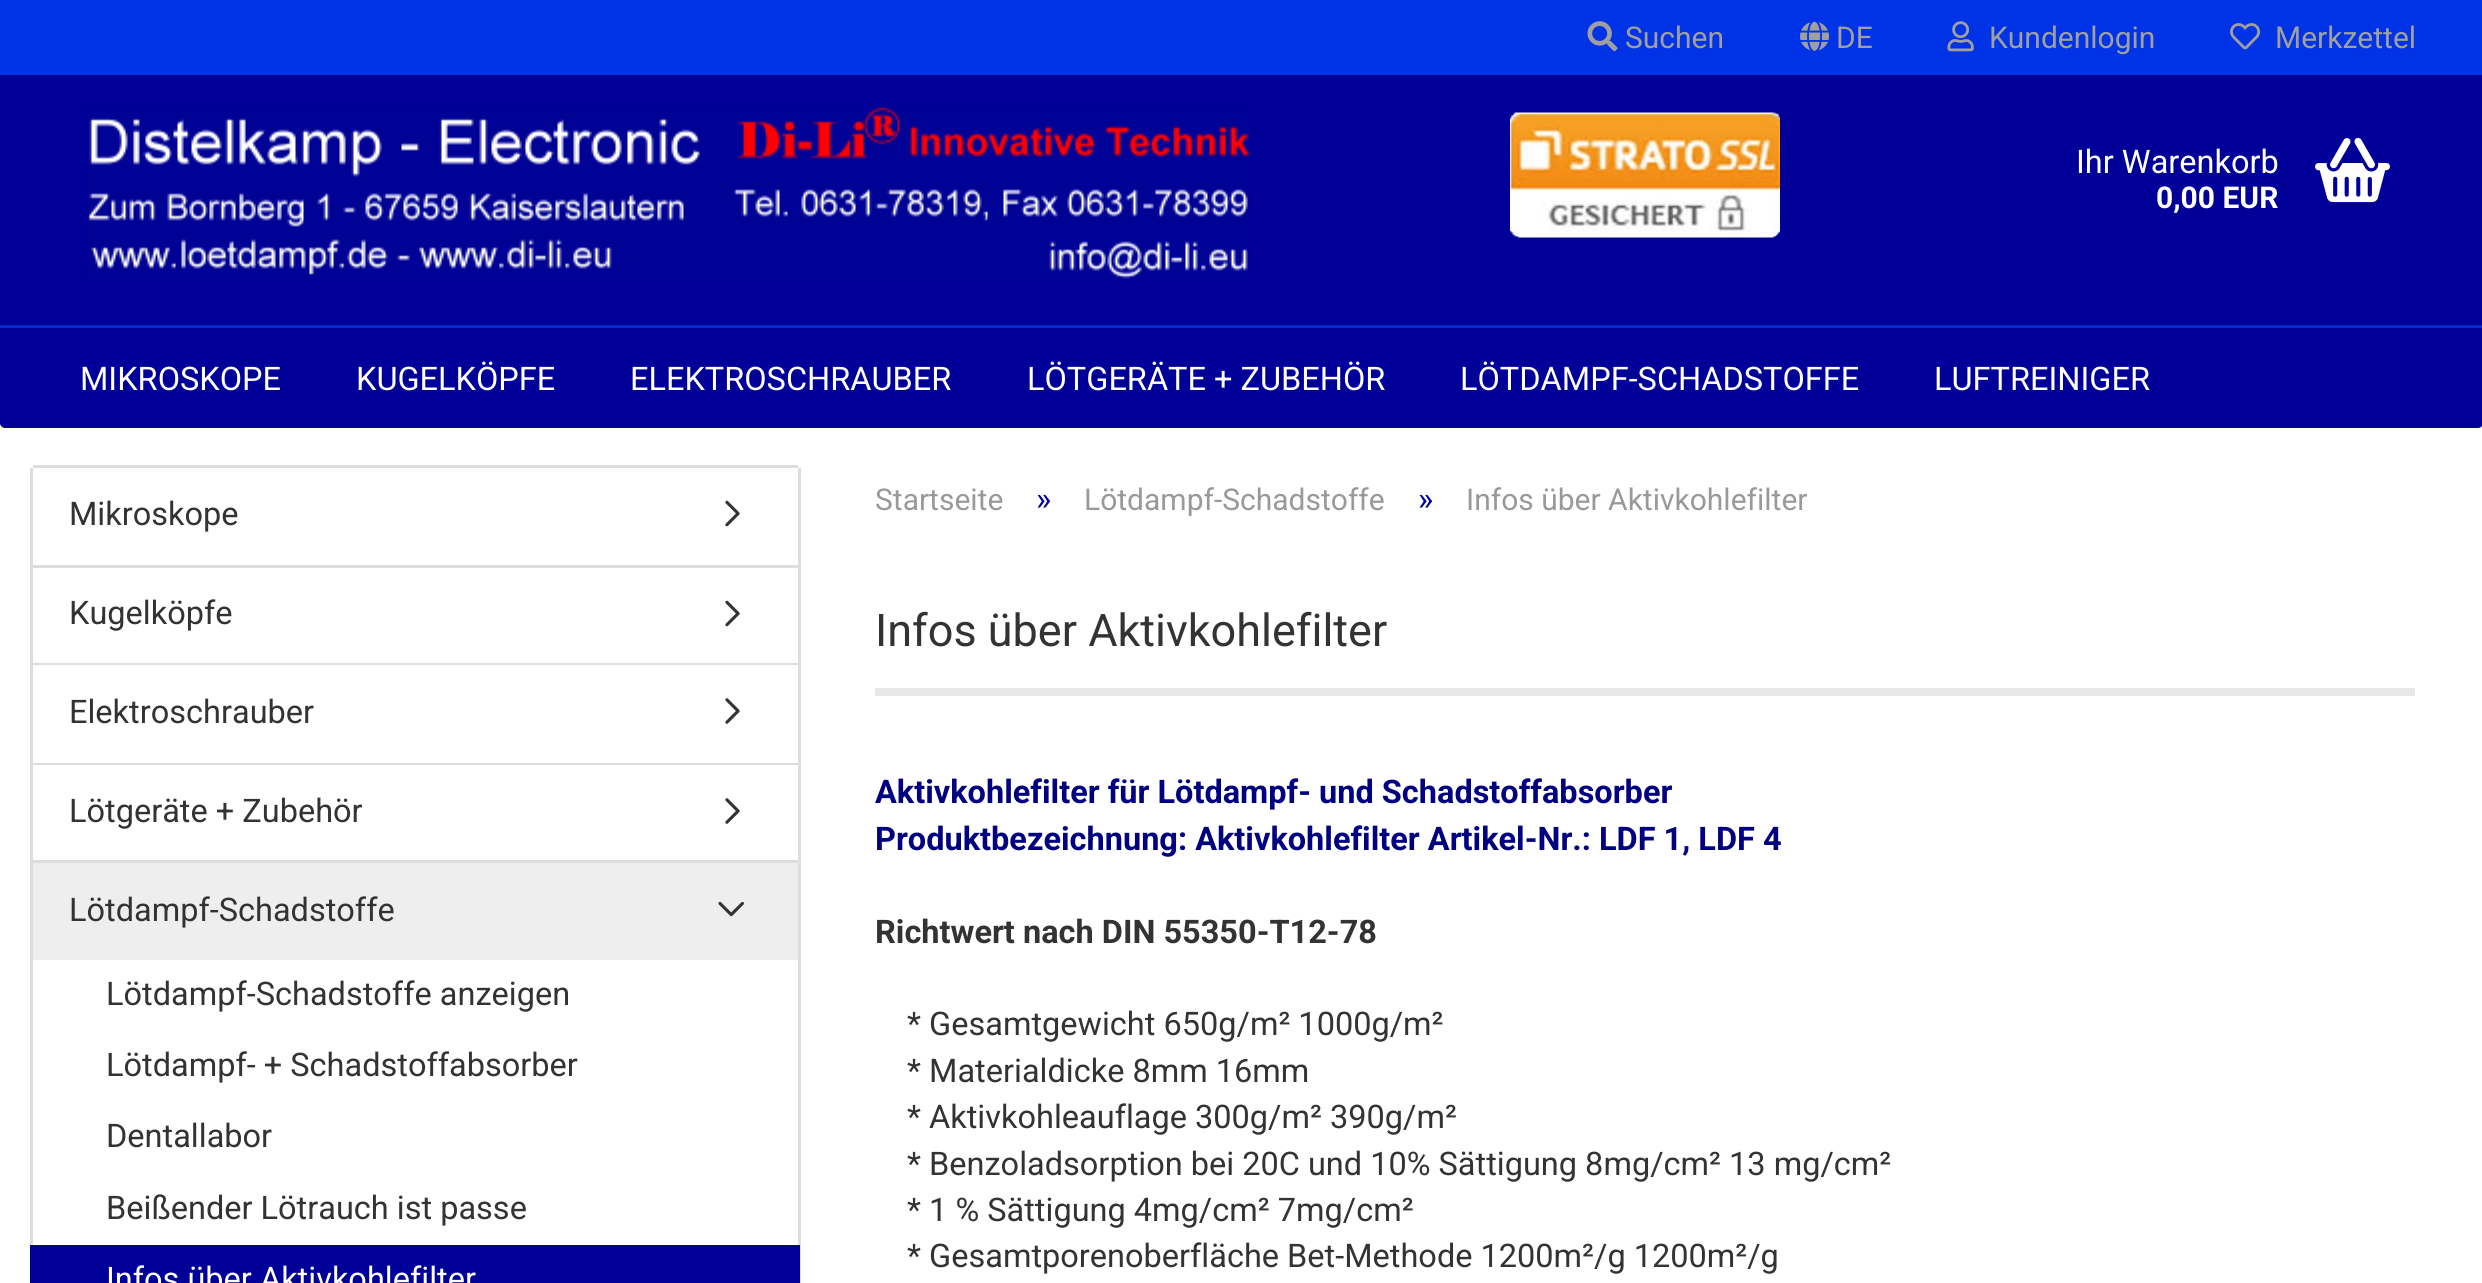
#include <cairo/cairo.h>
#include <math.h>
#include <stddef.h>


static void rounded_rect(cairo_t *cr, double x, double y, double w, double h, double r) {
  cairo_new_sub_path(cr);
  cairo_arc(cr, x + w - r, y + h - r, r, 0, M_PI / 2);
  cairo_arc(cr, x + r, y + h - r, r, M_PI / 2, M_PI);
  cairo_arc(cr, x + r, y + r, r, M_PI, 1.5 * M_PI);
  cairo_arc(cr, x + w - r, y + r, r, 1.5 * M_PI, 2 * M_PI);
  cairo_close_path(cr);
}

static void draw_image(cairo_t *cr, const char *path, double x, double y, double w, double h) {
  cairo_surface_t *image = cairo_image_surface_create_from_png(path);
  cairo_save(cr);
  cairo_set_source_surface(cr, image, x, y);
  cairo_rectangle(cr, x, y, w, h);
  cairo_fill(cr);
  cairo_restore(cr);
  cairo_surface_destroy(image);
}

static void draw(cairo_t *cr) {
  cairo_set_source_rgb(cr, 1, 1, 1);
  cairo_paint(cr);
  cairo_set_source_rgb(cr, 0, 0, 153 / 255.0);
  rounded_rect(cr, 0, 0, 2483, 428, 5);
  cairo_fill(cr);
  cairo_set_source_rgb(cr, 0, 51 / 255.0, 229 / 255.0);
  cairo_rectangle(cr, 0, 0, 2482, 75);
  cairo_fill(cr);
  draw_image(cr, "images/1.png", 1587, 21, 31, 31);
  draw_image(cr, "images/2.png", 1800, 21, 30, 30);
  draw_image(cr, "images/3.png", 1947, 21, 27, 31);
  draw_image(cr, "images/4.png", 2230, 23, 31, 27);
  draw_image(cr, "images/5.png", 87, 107, 1163, 172);
  draw_image(cr, "images/6.png", 1510, 112, 270, 126);
  draw_image(cr, "images/7.png", 2315, 137, 75, 66);
  cairo_set_source_rgb(cr, 0, 44 / 255.0, 197 / 255.0);
  cairo_rectangle(cr, 0, 325, 2482, 3);
  cairo_fill(cr);
  cairo_set_source_rgb(cr, 221 / 255.0, 221 / 255.0, 221 / 255.0);
  cairo_rectangle(cr, 33, 465, 765, 3);
  cairo_fill(cr);
  cairo_rectangle(cr, 798, 468, 3, 815);
  cairo_fill(cr);
  cairo_rectangle(cr, 30, 468, 3, 777);
  cairo_fill(cr);
  cairo_rectangle(cr, 33, 565, 765, 3);
  cairo_fill(cr);
  draw_image(cr, "images/8.png", 725, 500, 15, 27);
  cairo_rectangle(cr, 33, 663, 765, 2);
  cairo_fill(cr);
  draw_image(cr, "images/8.png", 725, 600, 15, 27);
  cairo_rectangle(cr, 33, 763, 765, 2);
  cairo_fill(cr);
  draw_image(cr, "images/9.png", 725, 698, 15, 26);
  cairo_rectangle(cr, 33, 860, 765, 3);
  cairo_fill(cr);
  draw_image(cr, "images/9.png", 725, 798, 15, 26);
  cairo_set_source_rgb(cr, 238 / 255.0, 238 / 255.0, 238 / 255.0);
  cairo_rectangle(cr, 33, 863, 765, 97);
  cairo_fill(cr);
  draw_image(cr, "images/10.png", 718, 901, 26, 16);
  cairo_set_source_rgb(cr, 0, 0, 153 / 255.0);
  cairo_rectangle(cr, 30, 1245, 770, 38);
  cairo_fill(cr);
  cairo_set_source_rgb(cr, 231 / 255.0, 231 / 255.0, 231 / 255.0);
  cairo_rectangle(cr, 875, 688, 1540, 8);
  cairo_fill(cr);
  cairo_select_font_face(cr, "Roboto", CAIRO_FONT_SLANT_NORMAL, CAIRO_FONT_WEIGHT_NORMAL);
  cairo_set_font_size(cr, 30);
  cairo_set_source_rgb(cr, 159 / 255.0, 159 / 255.0, 159 / 255.0);
  cairo_move_to(cr, 1625, 48);
  cairo_show_text(cr, "Suchen");
  cairo_move_to(cr, 1836, 48);
  cairo_show_text(cr, "DE");
  cairo_move_to(cr, 1989, 48);
  cairo_show_text(cr, "Kundenlogin");
  cairo_move_to(cr, 2275, 48);
  cairo_show_text(cr, "Merkzettel");
  cairo_set_font_size(cr, 32.5);
  cairo_set_source_rgb(cr, 1, 1, 1);
  cairo_move_to(cr, 2076, 173);
  cairo_show_text(cr, "Ihr Warenkorb");
  cairo_select_font_face(cr, "Roboto", CAIRO_FONT_SLANT_NORMAL, CAIRO_FONT_WEIGHT_BOLD);
  cairo_set_font_size(cr, 30);
  cairo_move_to(cr, 2156, 208);
  cairo_show_text(cr, "0,00 EUR");
  cairo_select_font_face(cr, "Roboto", CAIRO_FONT_SLANT_NORMAL, CAIRO_FONT_WEIGHT_NORMAL);
  cairo_set_font_size(cr, 32.5);
  cairo_move_to(cr, 80, 390);
  cairo_show_text(cr, "MIKROSKOPE");
  cairo_move_to(cr, 356, 390);
  cairo_show_text(cr, "KUGELKÖPFE");
  cairo_move_to(cr, 630, 390);
  cairo_show_text(cr, "ELEKTROSCHRAUBER");
  cairo_move_to(cr, 1027, 390);
  cairo_show_text(cr, "LÖTGERÄTE + ZUBEHÖR");
  cairo_move_to(cr, 1460, 390);
  cairo_show_text(cr, "LÖTDAMPF-SCHADSTOFFE");
  cairo_move_to(cr, 1934, 390);
  cairo_show_text(cr, "LUFTREINIGER");
  cairo_set_source_rgb(cr, 51 / 255.0, 51 / 255.0, 51 / 255.0);
  cairo_move_to(cr, 69, 525);
  cairo_show_text(cr, "Mikroskope");
  cairo_move_to(cr, 69, 624);
  cairo_show_text(cr, "Kugelköpfe");
  cairo_move_to(cr, 69, 723);
  cairo_show_text(cr, "Elektroschrauber");
  cairo_move_to(cr, 69, 822);
  cairo_show_text(cr, "Lötgeräte + Zubehör");
  cairo_move_to(cr, 69, 921);
  cairo_show_text(cr, "Lötdampf-Schadstoffe");
  cairo_move_to(cr, 106, 1005);
  cairo_show_text(cr, "Lötdampf-Schadstoffe anzeigen");
  cairo_move_to(cr, 106, 1076);
  cairo_show_text(cr, "Lötdampf- + Schadstoffabsorber");
  cairo_move_to(cr, 106, 1147);
  cairo_show_text(cr, "Dentallabor");
  cairo_move_to(cr, 106, 1219);
  cairo_show_text(cr, "Beißender Lötrauch ist passe");
  cairo_set_source_rgb(cr, 1, 1, 1);
  cairo_move_to(cr, 106, 1290);
  cairo_show_text(cr, "Infos über Aktivkohlefilter");
  cairo_set_font_size(cr, 30);
  cairo_set_source_rgb(cr, 153 / 255.0, 153 / 255.0, 153 / 255.0);
  cairo_move_to(cr, 875, 510);
  cairo_show_text(cr, "Startseite");
  cairo_set_font_size(cr, 32.5);
  cairo_set_source_rgb(cr, 0, 0, 153 / 255.0);
  cairo_move_to(cr, 1036, 510);
  cairo_show_text(cr, "»");
  cairo_set_font_size(cr, 30);
  cairo_set_source_rgb(cr, 153 / 255.0, 153 / 255.0, 153 / 255.0);
  cairo_move_to(cr, 1084, 510);
  cairo_show_text(cr, "Lötdampf-Schadstoffe");
  cairo_set_font_size(cr, 32.5);
  cairo_set_source_rgb(cr, 0, 0, 153 / 255.0);
  cairo_move_to(cr, 1418, 510);
  cairo_show_text(cr, "»");
  cairo_set_font_size(cr, 30);
  cairo_set_source_rgb(cr, 153 / 255.0, 153 / 255.0, 153 / 255.0);
  cairo_move_to(cr, 1466, 510);
  cairo_show_text(cr, "Infos über Aktivkohlefilter");
  cairo_set_font_size(cr, 45);
  cairo_set_source_rgb(cr, 51 / 255.0, 51 / 255.0, 51 / 255.0);
  cairo_move_to(cr, 875, 646);
  cairo_show_text(cr, "Infos über Aktivkohlefilter");
  cairo_select_font_face(cr, "Roboto", CAIRO_FONT_SLANT_NORMAL, CAIRO_FONT_WEIGHT_BOLD);
  cairo_set_font_size(cr, 32.5);
  cairo_set_source_rgb(cr, 0, 0, 128 / 255.0);
  cairo_move_to(cr, 875, 803);
  cairo_show_text(cr, "Aktivkohlefilter für Lötdampf- und Schadstoffabsorber");
  cairo_move_to(cr, 875, 850);
  cairo_show_text(cr, "Produktbezeichnung: Aktivkohlefilter Artikel-Nr.: LDF 1, LDF 4");
  cairo_set_source_rgb(cr, 51 / 255.0, 51 / 255.0, 51 / 255.0);
  cairo_move_to(cr, 875, 943);
  cairo_show_text(cr, "Richtwert nach DIN 55350-T12-78");
  cairo_select_font_face(cr, "Roboto", CAIRO_FONT_SLANT_NORMAL, CAIRO_FONT_WEIGHT_NORMAL);
  cairo_move_to(cr, 907, 1035);
  cairo_show_text(cr, "* Gesamtgewicht 650g/m² 1000g/m²");
  cairo_move_to(cr, 907, 1082);
  cairo_show_text(cr, "* Materialdicke 8mm 16mm");
  cairo_move_to(cr, 907, 1128);
  cairo_show_text(cr, "* Aktivkohleauflage 300g/m² 390g/m²");
  cairo_move_to(cr, 907, 1175);
  cairo_show_text(cr, "* Benzoladsorption bei 20C und 10% Sättigung 8mg/cm² 13 mg/cm²");
  cairo_move_to(cr, 907, 1221);
  cairo_show_text(cr, "* 1 % Sättigung 4mg/cm² 7mg/cm²");
  cairo_move_to(cr, 907, 1267);
  cairo_show_text(cr, "* Gesamtporenoberfläche Bet-Methode 1200m²/g 1200m²/g");
}

int main(void) {
  cairo_surface_t *surface = cairo_image_surface_create(CAIRO_FORMAT_RGB24, 2482, 1283);
  cairo_t *cr = cairo_create(surface);
  cairo_font_options_t *options = cairo_font_options_create();
  cairo_font_options_set_hint_metrics(options, CAIRO_HINT_METRICS_OFF);
  cairo_font_options_set_hint_style(options, CAIRO_HINT_STYLE_NONE);
  cairo_set_font_options(cr, options);
  cairo_set_miter_limit(cr, 4);
  draw(cr);
  cairo_surface_write_to_png(surface, "out.png");
  cairo_font_options_destroy(options);
  cairo_destroy(cr);
  cairo_surface_destroy(surface);
  return 0;
}
